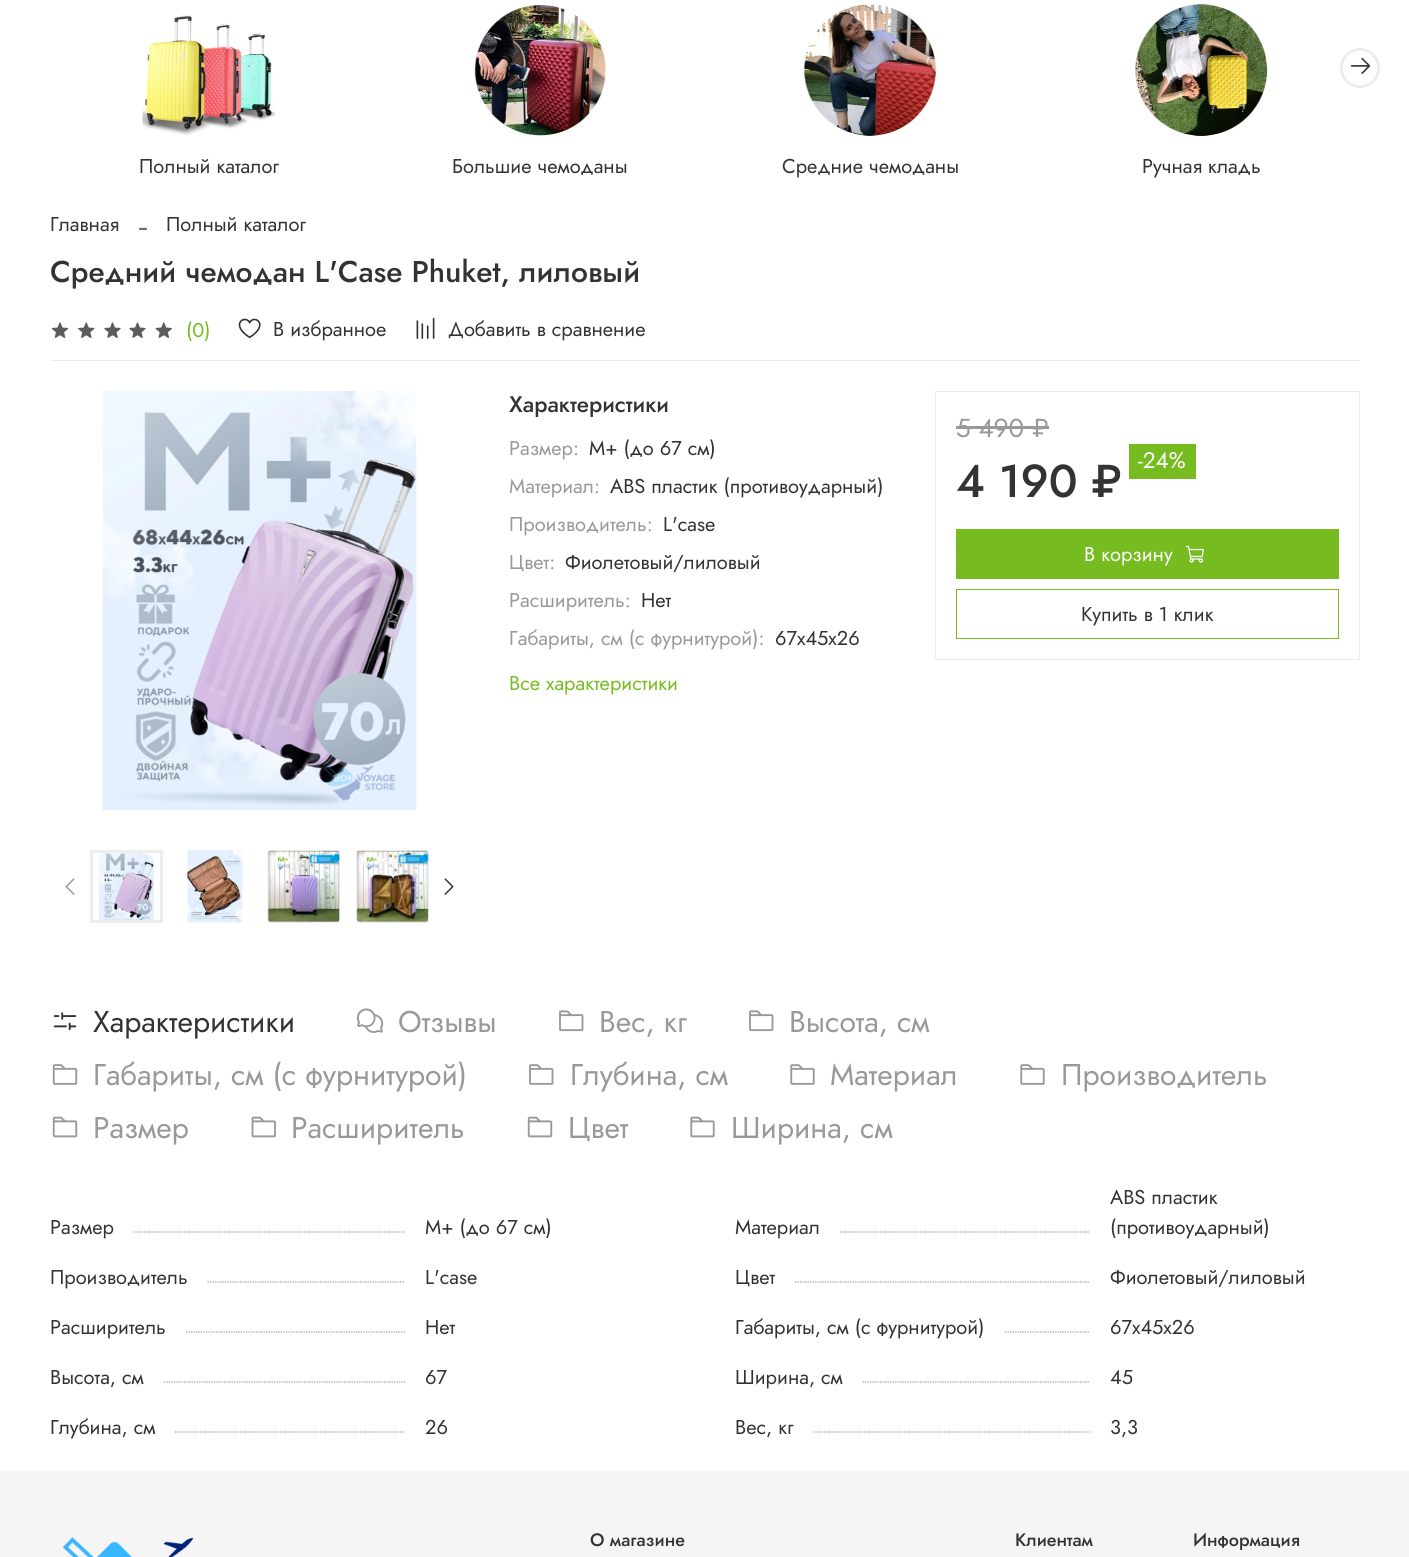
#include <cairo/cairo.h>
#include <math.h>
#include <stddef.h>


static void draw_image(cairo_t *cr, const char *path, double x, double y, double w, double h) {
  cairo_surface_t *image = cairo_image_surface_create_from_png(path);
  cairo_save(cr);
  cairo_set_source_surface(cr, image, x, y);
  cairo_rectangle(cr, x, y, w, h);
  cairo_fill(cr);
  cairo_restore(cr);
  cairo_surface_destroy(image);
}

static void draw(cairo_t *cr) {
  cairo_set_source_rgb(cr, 1, 1, 1);
  cairo_paint(cr);
  cairo_arc(cr, 1360, 68, 18.5, 0, 2 * M_PI);
  cairo_set_source_rgb(cr, 237 / 255.0, 237 / 255.0, 237 / 255.0);
  cairo_set_line_width(cr, 3);
  cairo_stroke(cr);
  draw_image(cr, "images/1.png", 1350, 57, 21, 17);
  draw_image(cr, "images/2.png", 142, 15, 133, 121);
  draw_image(cr, "images/3.png", 474, 5, 132, 131);
  draw_image(cr, "images/4.png", 803, 4, 134, 132);
  draw_image(cr, "images/5.png", 1135, 4, 133, 132);
  draw_image(cr, "images/6.png", 51, 322, 18, 16);
  draw_image(cr, "images/7.png", 78, 322, 17, 16);
  draw_image(cr, "images/8.png", 104, 322, 17, 16);
  draw_image(cr, "images/8.png", 129, 322, 17, 16);
  draw_image(cr, "images/9.png", 155, 322, 17, 16);
  draw_image(cr, "images/10.png", 238, 318, 23, 21);
  draw_image(cr, "images/11.png", 416, 317, 19, 22);
  cairo_rectangle(cr, 50, 360, 1310, 1);
  cairo_fill(cr);
  draw_image(cr, "images/12.png", 102, 391, 315, 419);
  draw_image(cr, "images/13.png", 98, 853, 56, 67);
  cairo_rectangle(cr, 91.5, 851.5, 70, 70);
  cairo_stroke(cr);
  draw_image(cr, "images/14.png", 187, 850, 56, 73);
  draw_image(cr, "images/15.png", 267, 850, 73, 73);
  draw_image(cr, "images/16.png", 356, 850, 73, 73);
  draw_image(cr, "images/17.png", 65, 878, 10, 17);
  draw_image(cr, "images/18.png", 444, 878, 10, 17);
  cairo_rectangle(cr, 935.5, 391.5, 424, 268);
  cairo_set_line_width(cr, 1);
  cairo_stroke(cr);
  cairo_set_source_rgb(cr, 153 / 255.0, 153 / 255.0, 153 / 255.0);
  cairo_rectangle(cr, 956, 426, 93, 3);
  cairo_fill(cr);
  cairo_set_source_rgb(cr, 118 / 255.0, 188 / 255.0, 33 / 255.0);
  cairo_rectangle(cr, 1129, 444, 67, 35);
  cairo_fill(cr);
  cairo_rectangle(cr, 956, 529, 383, 50);
  cairo_fill(cr);
  draw_image(cr, "images/19.png", 1186, 545, 18, 18);
  cairo_rectangle(cr, 956.5, 589.5, 382, 49);
  cairo_stroke(cr);
  draw_image(cr, "images/20.png", 53, 1012, 24, 19);
  draw_image(cr, "images/21.png", 356, 1008, 28, 25);
  draw_image(cr, "images/22.png", 559, 1010, 25, 22);
  draw_image(cr, "images/22.png", 749, 1010, 25, 22);
  draw_image(cr, "images/23.png", 52, 1064, 26, 21);
  draw_image(cr, "images/24.png", 529, 1064, 25, 21);
  draw_image(cr, "images/25.png", 790, 1064, 25, 21);
  draw_image(cr, "images/25.png", 1020, 1064, 25, 21);
  draw_image(cr, "images/26.png", 52, 1116, 26, 22);
  draw_image(cr, "images/27.png", 251, 1116, 25, 22);
  draw_image(cr, "images/26.png", 527, 1116, 26, 22);
  draw_image(cr, "images/28.png", 690, 1116, 25, 22);
  cairo_new_path(cr);
  cairo_move_to(cr, 134, 1232);
  cairo_line_to(cr, 405, 1232);
  cairo_set_source_rgb(cr, 153 / 255.0, 153 / 255.0, 153 / 255.0);
  cairo_set_line_width(cr, 1.2);
  cairo_set_dash(cr, (double[]){1.25, 1.25}, 2, 0);
  cairo_stroke(cr);
  cairo_new_path(cr);
  cairo_move_to(cr, 840, 1232);
  cairo_line_to(cr, 1090, 1232);
  cairo_stroke(cr);
  cairo_new_path(cr);
  cairo_move_to(cr, 207.5, 1282);
  cairo_line_to(cr, 405, 1282);
  cairo_stroke(cr);
  cairo_new_path(cr);
  cairo_move_to(cr, 795, 1282);
  cairo_line_to(cr, 1090, 1282);
  cairo_stroke(cr);
  cairo_new_path(cr);
  cairo_move_to(cr, 186, 1332);
  cairo_line_to(cr, 405, 1332);
  cairo_stroke(cr);
  cairo_new_path(cr);
  cairo_move_to(cr, 1005, 1332);
  cairo_line_to(cr, 1090, 1332);
  cairo_stroke(cr);
  cairo_new_path(cr);
  cairo_move_to(cr, 164, 1382);
  cairo_line_to(cr, 405, 1382);
  cairo_stroke(cr);
  cairo_new_path(cr);
  cairo_move_to(cr, 862.5, 1382);
  cairo_line_to(cr, 1090, 1382);
  cairo_stroke(cr);
  cairo_new_path(cr);
  cairo_move_to(cr, 175, 1432);
  cairo_line_to(cr, 405, 1432);
  cairo_stroke(cr);
  cairo_new_path(cr);
  cairo_move_to(cr, 814, 1432);
  cairo_line_to(cr, 1090, 1432);
  cairo_stroke(cr);
  cairo_set_source_rgb(cr, 245 / 255.0, 245 / 255.0, 246 / 255.0);
  cairo_rectangle(cr, 0, 1471, 1409, 86);
  cairo_fill(cr);
  draw_image(cr, "images/29.png", 62, 1536, 132, 21);
  cairo_select_font_face(cr, "Jost", CAIRO_FONT_SLANT_NORMAL, CAIRO_FONT_WEIGHT_NORMAL);
  cairo_set_font_size(cr, 20);
  cairo_set_source_rgb(cr, 51 / 255.0, 51 / 255.0, 51 / 255.0);
  cairo_move_to(cr, 139, 173);
  cairo_show_text(cr, "Полный каталог");
  cairo_move_to(cr, 452, 173);
  cairo_show_text(cr, "Большие чемоданы");
  cairo_move_to(cr, 782, 173);
  cairo_show_text(cr, "Средние чемоданы");
  cairo_move_to(cr, 1142, 173);
  cairo_show_text(cr, "Ручная кладь");
  cairo_move_to(cr, 50, 231);
  cairo_show_text(cr, "Главная");
  cairo_select_font_face(cr, "Liberation Serif", CAIRO_FONT_SLANT_NORMAL, CAIRO_FONT_WEIGHT_NORMAL);
  cairo_set_font_size(cr, 30);
  cairo_set_source_rgb(cr, 112 / 255.0, 112 / 255.0, 112 / 255.0);
  cairo_move_to(cr, 138, 236);
  cairo_show_text(cr, "-");
  cairo_select_font_face(cr, "Jost", CAIRO_FONT_SLANT_NORMAL, CAIRO_FONT_WEIGHT_NORMAL);
  cairo_set_font_size(cr, 20);
  cairo_set_source_rgb(cr, 51 / 255.0, 51 / 255.0, 51 / 255.0);
  cairo_move_to(cr, 166, 231);
  cairo_show_text(cr, "Полный каталог");
  cairo_select_font_face(cr, "Jost Medium", CAIRO_FONT_SLANT_NORMAL, CAIRO_FONT_WEIGHT_NORMAL);
  cairo_set_font_size(cr, 30);
  cairo_move_to(cr, 50, 282);
  cairo_show_text(cr, "Средний чемодан L'Case Phuket, лиловый");
  cairo_select_font_face(cr, "Jost", CAIRO_FONT_SLANT_NORMAL, CAIRO_FONT_WEIGHT_NORMAL);
  cairo_set_font_size(cr, 20);
  cairo_set_source_rgb(cr, 118 / 255.0, 188 / 255.0, 33 / 255.0);
  cairo_move_to(cr, 186, 337);
  cairo_show_text(cr, "(0)");
  cairo_set_source_rgb(cr, 51 / 255.0, 51 / 255.0, 51 / 255.0);
  cairo_move_to(cr, 273, 336);
  cairo_show_text(cr, "В избранное");
  cairo_move_to(cr, 448, 336);
  cairo_show_text(cr, "Добавить в сравнение");
  cairo_select_font_face(cr, "Jost Medium", CAIRO_FONT_SLANT_NORMAL, CAIRO_FONT_WEIGHT_NORMAL);
  cairo_set_font_size(cr, 22.5);
  cairo_move_to(cr, 509, 412);
  cairo_show_text(cr, "Характеристики");
  cairo_select_font_face(cr, "Jost", CAIRO_FONT_SLANT_NORMAL, CAIRO_FONT_WEIGHT_NORMAL);
  cairo_set_font_size(cr, 20);
  cairo_set_source_rgb(cr, 153 / 255.0, 153 / 255.0, 153 / 255.0);
  cairo_move_to(cr, 509, 455);
  cairo_show_text(cr, "Размер:");
  cairo_set_source_rgb(cr, 51 / 255.0, 51 / 255.0, 51 / 255.0);
  cairo_move_to(cr, 589, 455);
  cairo_show_text(cr, "M+ (до 67 см)");
  cairo_set_source_rgb(cr, 153 / 255.0, 153 / 255.0, 153 / 255.0);
  cairo_move_to(cr, 509, 493);
  cairo_show_text(cr, "Материал:");
  cairo_set_source_rgb(cr, 51 / 255.0, 51 / 255.0, 51 / 255.0);
  cairo_move_to(cr, 610, 493);
  cairo_show_text(cr, "ABS пластик (противоударный)");
  cairo_set_source_rgb(cr, 153 / 255.0, 153 / 255.0, 153 / 255.0);
  cairo_move_to(cr, 509, 531);
  cairo_show_text(cr, "Производитель:");
  cairo_set_source_rgb(cr, 51 / 255.0, 51 / 255.0, 51 / 255.0);
  cairo_move_to(cr, 663, 531);
  cairo_show_text(cr, "L'case");
  cairo_set_source_rgb(cr, 153 / 255.0, 153 / 255.0, 153 / 255.0);
  cairo_move_to(cr, 509, 569);
  cairo_show_text(cr, "Цвет:");
  cairo_set_source_rgb(cr, 51 / 255.0, 51 / 255.0, 51 / 255.0);
  cairo_move_to(cr, 565, 569);
  cairo_show_text(cr, "Фиолетовый/лиловый");
  cairo_set_source_rgb(cr, 153 / 255.0, 153 / 255.0, 153 / 255.0);
  cairo_move_to(cr, 509, 607);
  cairo_show_text(cr, "Расширитель:");
  cairo_set_source_rgb(cr, 51 / 255.0, 51 / 255.0, 51 / 255.0);
  cairo_move_to(cr, 641, 607);
  cairo_show_text(cr, "Нет");
  cairo_set_source_rgb(cr, 153 / 255.0, 153 / 255.0, 153 / 255.0);
  cairo_move_to(cr, 509, 645);
  cairo_show_text(cr, "Габариты, см (с фурнитурой):");
  cairo_set_source_rgb(cr, 51 / 255.0, 51 / 255.0, 51 / 255.0);
  cairo_move_to(cr, 775, 645);
  cairo_show_text(cr, "67х45х26");
  cairo_set_source_rgb(cr, 118 / 255.0, 188 / 255.0, 33 / 255.0);
  cairo_move_to(cr, 509, 690);
  cairo_show_text(cr, "Все характеристики");
  cairo_set_font_size(cr, 26);
  cairo_set_source_rgb(cr, 153 / 255.0, 153 / 255.0, 153 / 255.0);
  cairo_move_to(cr, 956, 437);
  cairo_show_text(cr, "5 490 ₽");
  cairo_set_font_size(cr, 22.5);
  cairo_set_source_rgb(cr, 1, 1, 1);
  cairo_move_to(cr, 1138, 468);
  cairo_show_text(cr, "-24%");
  cairo_select_font_face(cr, "Jost Medium", CAIRO_FONT_SLANT_NORMAL, CAIRO_FONT_WEIGHT_NORMAL);
  cairo_set_font_size(cr, 46);
  cairo_set_source_rgb(cr, 51 / 255.0, 51 / 255.0, 51 / 255.0);
  cairo_move_to(cr, 956, 497);
  cairo_show_text(cr, "4 190 ₽");
  cairo_select_font_face(cr, "Jost", CAIRO_FONT_SLANT_NORMAL, CAIRO_FONT_WEIGHT_NORMAL);
  cairo_set_font_size(cr, 20);
  cairo_set_source_rgb(cr, 1, 1, 1);
  cairo_move_to(cr, 1084, 561);
  cairo_show_text(cr, "В корзину");
  cairo_set_source_rgb(cr, 51 / 255.0, 51 / 255.0, 51 / 255.0);
  cairo_move_to(cr, 1081, 621);
  cairo_show_text(cr, "Купить в 1 клик");
  cairo_set_font_size(cr, 30);
  cairo_move_to(cr, 93, 1032);
  cairo_show_text(cr, "Характеристики");
  cairo_set_source_rgb(cr, 153 / 255.0, 153 / 255.0, 153 / 255.0);
  cairo_move_to(cr, 398, 1032);
  cairo_show_text(cr, "Отзывы");
  cairo_move_to(cr, 599, 1032);
  cairo_show_text(cr, "Вес, кг");
  cairo_move_to(cr, 789, 1032);
  cairo_show_text(cr, "Высота, см");
  cairo_move_to(cr, 93, 1085);
  cairo_show_text(cr, "Габариты, см (с фурнитурой)");
  cairo_move_to(cr, 570, 1085);
  cairo_show_text(cr, "Глубина, см");
  cairo_move_to(cr, 830, 1085);
  cairo_show_text(cr, "Материал");
  cairo_move_to(cr, 1061, 1085);
  cairo_show_text(cr, "Производитель");
  cairo_move_to(cr, 93, 1138);
  cairo_show_text(cr, "Размер");
  cairo_move_to(cr, 291, 1138);
  cairo_show_text(cr, "Расширитель");
  cairo_move_to(cr, 568, 1138);
  cairo_show_text(cr, "Цвет");
  cairo_move_to(cr, 731, 1138);
  cairo_show_text(cr, "Ширина, см");
  cairo_set_font_size(cr, 20);
  cairo_set_source_rgb(cr, 51 / 255.0, 51 / 255.0, 51 / 255.0);
  cairo_move_to(cr, 50, 1234);
  cairo_show_text(cr, "Размер");
  cairo_move_to(cr, 425, 1234);
  cairo_show_text(cr, "M+ (до 67 см)");
  cairo_move_to(cr, 735, 1234);
  cairo_show_text(cr, "Материал");
  cairo_move_to(cr, 1110, 1204);
  cairo_show_text(cr, "ABS пластик");
  cairo_move_to(cr, 1110, 1234);
  cairo_show_text(cr, "(противоударный)");
  cairo_move_to(cr, 50, 1284);
  cairo_show_text(cr, "Производитель");
  cairo_move_to(cr, 425, 1284);
  cairo_show_text(cr, "L'case");
  cairo_move_to(cr, 735, 1284);
  cairo_show_text(cr, "Цвет");
  cairo_move_to(cr, 1110, 1284);
  cairo_show_text(cr, "Фиолетовый/лиловый");
  cairo_move_to(cr, 50, 1334);
  cairo_show_text(cr, "Расширитель");
  cairo_move_to(cr, 425, 1334);
  cairo_show_text(cr, "Нет");
  cairo_move_to(cr, 735, 1334);
  cairo_show_text(cr, "Габариты, см (с фурнитурой)");
  cairo_move_to(cr, 1110, 1334);
  cairo_show_text(cr, "67х45х26");
  cairo_move_to(cr, 50, 1384);
  cairo_show_text(cr, "Высота, см");
  cairo_move_to(cr, 425, 1384);
  cairo_show_text(cr, "67");
  cairo_move_to(cr, 735, 1384);
  cairo_show_text(cr, "Ширина, см");
  cairo_move_to(cr, 1110, 1384);
  cairo_show_text(cr, "45");
  cairo_move_to(cr, 50, 1434);
  cairo_show_text(cr, "Глубина, см");
  cairo_move_to(cr, 425, 1434);
  cairo_show_text(cr, "26");
  cairo_move_to(cr, 735, 1434);
  cairo_show_text(cr, "Вес, кг");
  cairo_move_to(cr, 1110, 1434);
  cairo_show_text(cr, "3,3");
  cairo_select_font_face(cr, "Jost Medium", CAIRO_FONT_SLANT_NORMAL, CAIRO_FONT_WEIGHT_NORMAL);
  cairo_set_font_size(cr, 18);
  cairo_move_to(cr, 590, 1546);
  cairo_show_text(cr, "О магазине");
  cairo_move_to(cr, 1015, 1546);
  cairo_show_text(cr, "Клиентам");
  cairo_move_to(cr, 1193, 1546);
  cairo_show_text(cr, "Информация");
}

int main(void) {
  cairo_surface_t *surface = cairo_image_surface_create(CAIRO_FORMAT_RGB24, 1409, 1557);
  cairo_t *cr = cairo_create(surface);
  cairo_font_options_t *options = cairo_font_options_create();
  cairo_font_options_set_hint_metrics(options, CAIRO_HINT_METRICS_OFF);
  cairo_font_options_set_hint_style(options, CAIRO_HINT_STYLE_NONE);
  cairo_set_font_options(cr, options);
  cairo_set_miter_limit(cr, 4);
  draw(cr);
  cairo_surface_write_to_png(surface, "out.png");
  cairo_font_options_destroy(options);
  cairo_destroy(cr);
  cairo_surface_destroy(surface);
  return 0;
}
